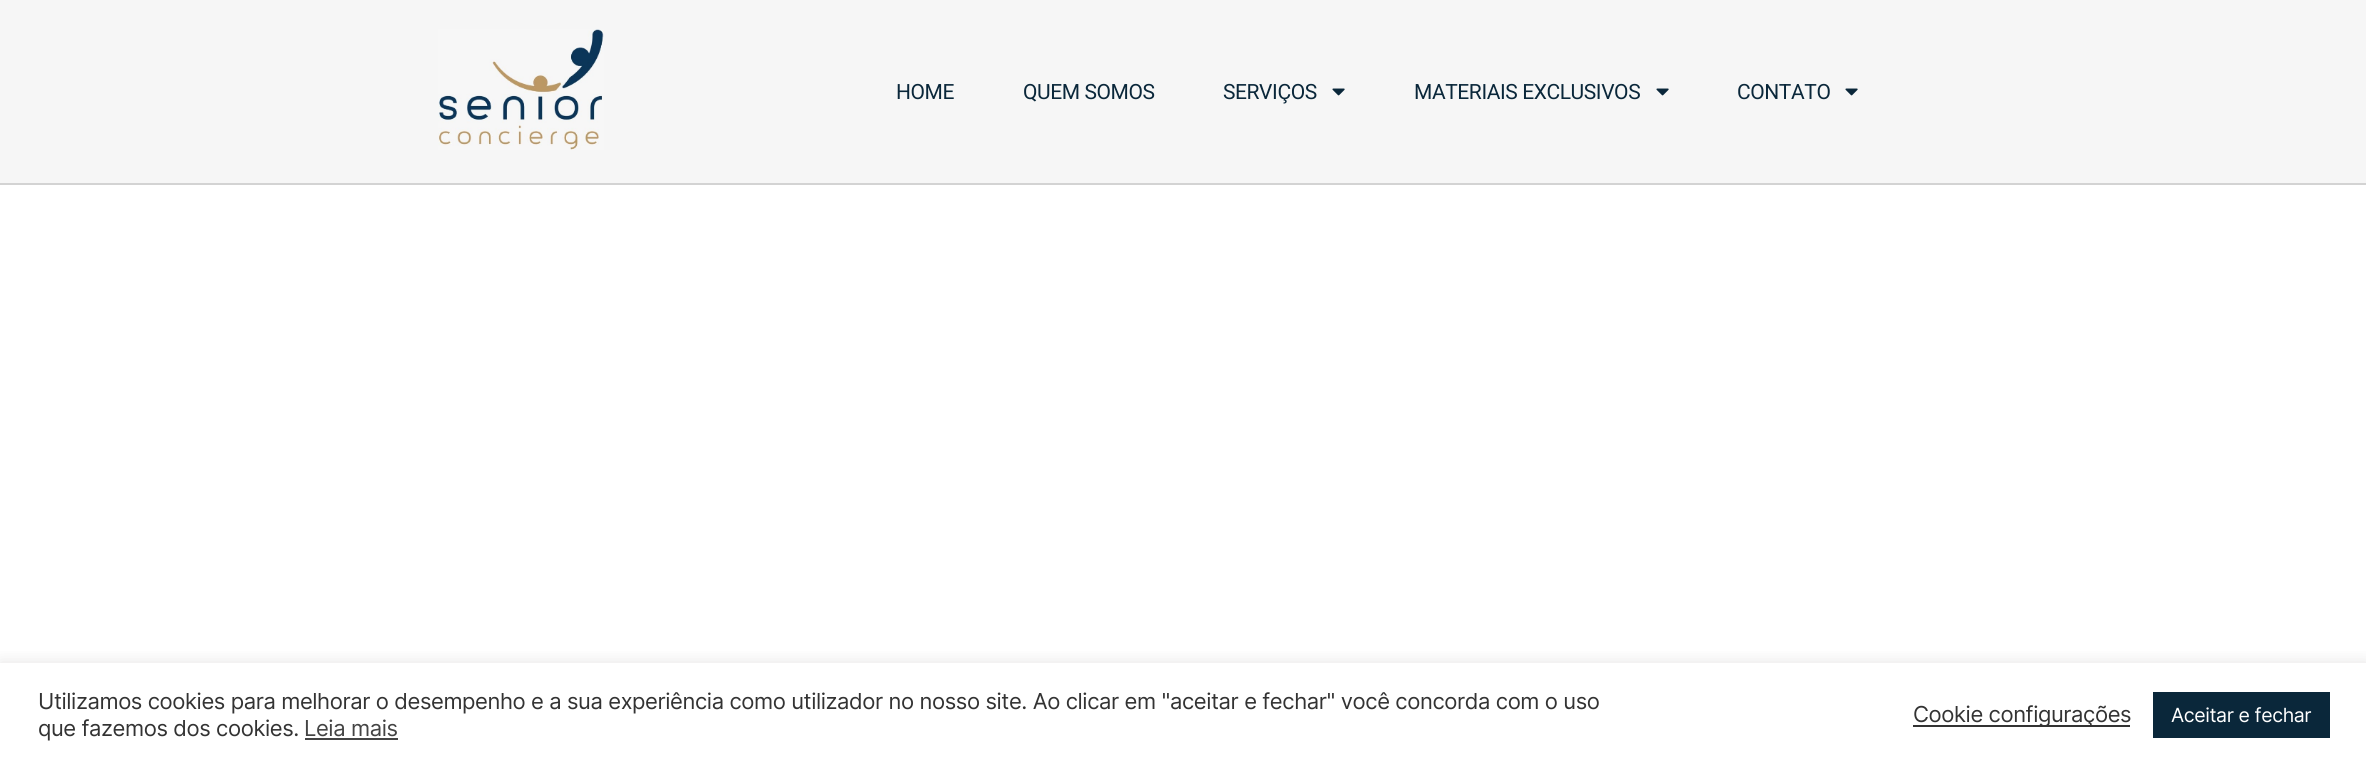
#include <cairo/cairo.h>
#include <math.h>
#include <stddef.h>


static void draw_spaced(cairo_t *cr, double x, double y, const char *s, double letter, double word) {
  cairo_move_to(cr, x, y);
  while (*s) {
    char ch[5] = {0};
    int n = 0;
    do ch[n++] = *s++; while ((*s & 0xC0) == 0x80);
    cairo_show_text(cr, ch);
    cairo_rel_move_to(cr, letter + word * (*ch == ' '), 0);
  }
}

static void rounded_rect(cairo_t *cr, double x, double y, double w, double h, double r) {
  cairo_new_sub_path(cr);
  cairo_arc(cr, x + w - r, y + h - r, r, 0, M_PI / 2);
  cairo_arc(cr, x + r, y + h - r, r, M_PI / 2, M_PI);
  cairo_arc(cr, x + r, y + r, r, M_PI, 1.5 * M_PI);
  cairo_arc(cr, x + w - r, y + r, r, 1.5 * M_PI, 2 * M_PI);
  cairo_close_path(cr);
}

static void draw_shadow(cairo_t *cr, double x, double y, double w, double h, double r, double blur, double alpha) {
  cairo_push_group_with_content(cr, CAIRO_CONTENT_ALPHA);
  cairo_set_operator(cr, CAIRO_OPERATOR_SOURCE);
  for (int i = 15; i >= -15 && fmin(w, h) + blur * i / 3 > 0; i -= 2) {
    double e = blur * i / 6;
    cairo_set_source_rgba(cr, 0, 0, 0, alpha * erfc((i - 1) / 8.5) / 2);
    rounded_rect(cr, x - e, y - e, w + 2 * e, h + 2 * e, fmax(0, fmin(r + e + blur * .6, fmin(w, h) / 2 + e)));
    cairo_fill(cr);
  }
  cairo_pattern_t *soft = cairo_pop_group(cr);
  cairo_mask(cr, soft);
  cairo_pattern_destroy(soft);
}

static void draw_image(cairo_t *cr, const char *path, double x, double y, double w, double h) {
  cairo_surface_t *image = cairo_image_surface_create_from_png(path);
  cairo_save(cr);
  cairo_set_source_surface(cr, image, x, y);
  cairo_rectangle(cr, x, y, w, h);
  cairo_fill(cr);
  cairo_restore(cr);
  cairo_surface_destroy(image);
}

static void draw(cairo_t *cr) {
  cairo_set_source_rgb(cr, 1, 1, 1);
  cairo_paint(cr);
  cairo_set_source_rgb(cr, 246 / 255.0, 246 / 255.0, 246 / 255.0);
  cairo_rectangle(cr, 0, 0, 2366, 183);
  cairo_fill(cr);
  cairo_set_source_rgb(cr, 211 / 255.0, 211 / 255.0, 211 / 255.0);
  cairo_rectangle(cr, 0, 183, 2366, 2);
  cairo_fill(cr);
  draw_image(cr, "images/1.png", 438, 29, 166, 121);
  draw_image(cr, "images/2.png", 1332, 88, 13, 8);
  draw_image(cr, "images/2.png", 1656, 88, 13, 8);
  draw_image(cr, "images/2.png", 1845, 88, 13, 8);
  cairo_save(cr);
  cairo_rectangle(cr, 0, 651, 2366, 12);
  cairo_clip(cr);
  cairo_set_source_rgb(cr, 172 / 255.0, 171 / 255.0, 171 / 255.0);
  draw_shadow(cr, 0, 662, 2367, 103, 0, 7.5, 0.3);
  cairo_restore(cr);
  cairo_set_source_rgb(cr, 68 / 255.0, 68 / 255.0, 68 / 255.0);
  cairo_rectangle(cr, 305, 738, 93, 2);
  cairo_fill(cr);
  cairo_set_source_rgb(cr, 51 / 255.0, 51 / 255.0, 51 / 255.0);
  cairo_rectangle(cr, 1913, 725, 217, 2);
  cairo_fill(cr);
  cairo_set_source_rgb(cr, 10 / 255.0, 39 / 255.0, 58 / 255.0);
  cairo_rectangle(cr, 2153, 692, 177, 46);
  cairo_fill(cr);
  cairo_select_font_face(cr, "Roboto", CAIRO_FONT_SLANT_NORMAL, CAIRO_FONT_WEIGHT_NORMAL);
  cairo_set_font_size(cr, 21);
  draw_spaced(cr, 896, 99, "HOME", -0.41, 0);
  draw_spaced(cr, 1023, 99, "QUEM SOMOS", -0.41, 0);
  draw_spaced(cr, 1223, 99, "SERVIÇOS", -0.41, 0);
  draw_spaced(cr, 1414, 99, "MATERIAIS EXCLUSIVOS", -0.41, 0);
  draw_spaced(cr, 1737, 99, "CONTATO", -0.41, 0);
  cairo_select_font_face(cr, "Inter", CAIRO_FONT_SLANT_NORMAL, CAIRO_FONT_WEIGHT_NORMAL);
  cairo_set_font_size(cr, 22);
  cairo_set_source_rgb(cr, 51 / 255.0, 51 / 255.0, 51 / 255.0);
  draw_spaced(cr, 38, 709, "Utilizamos cookies para melhorar o desempenho e a sua experiência como utilizador no nosso site. Ao clicar em \"aceitar e fechar\" você concorda com o uso", -0.41, 0);
  draw_spaced(cr, 38, 736, "que fazemos dos cookies.", -0.41, 0);
  cairo_set_source_rgb(cr, 68 / 255.0, 68 / 255.0, 68 / 255.0);
  draw_spaced(cr, 304, 736, "Leia mais", -0.41, 0);
  cairo_set_source_rgb(cr, 51 / 255.0, 51 / 255.0, 51 / 255.0);
  draw_spaced(cr, 1913, 722, "Cookie configurações", -0.41, 0);
  cairo_set_font_size(cr, 19.5);
  cairo_set_source_rgb(cr, 1, 1, 1);
  draw_spaced(cr, 2171, 722, "Aceitar e fechar", -0.41, 0);
}

int main(void) {
  cairo_surface_t *surface = cairo_image_surface_create(CAIRO_FORMAT_RGB24, 2366, 766);
  cairo_t *cr = cairo_create(surface);
  cairo_font_options_t *options = cairo_font_options_create();
  cairo_font_options_set_hint_metrics(options, CAIRO_HINT_METRICS_OFF);
  cairo_font_options_set_hint_style(options, CAIRO_HINT_STYLE_NONE);
  cairo_set_font_options(cr, options);
  cairo_set_miter_limit(cr, 4);
  draw(cr);
  cairo_surface_write_to_png(surface, "out.png");
  cairo_font_options_destroy(options);
  cairo_destroy(cr);
  cairo_surface_destroy(surface);
  return 0;
}
